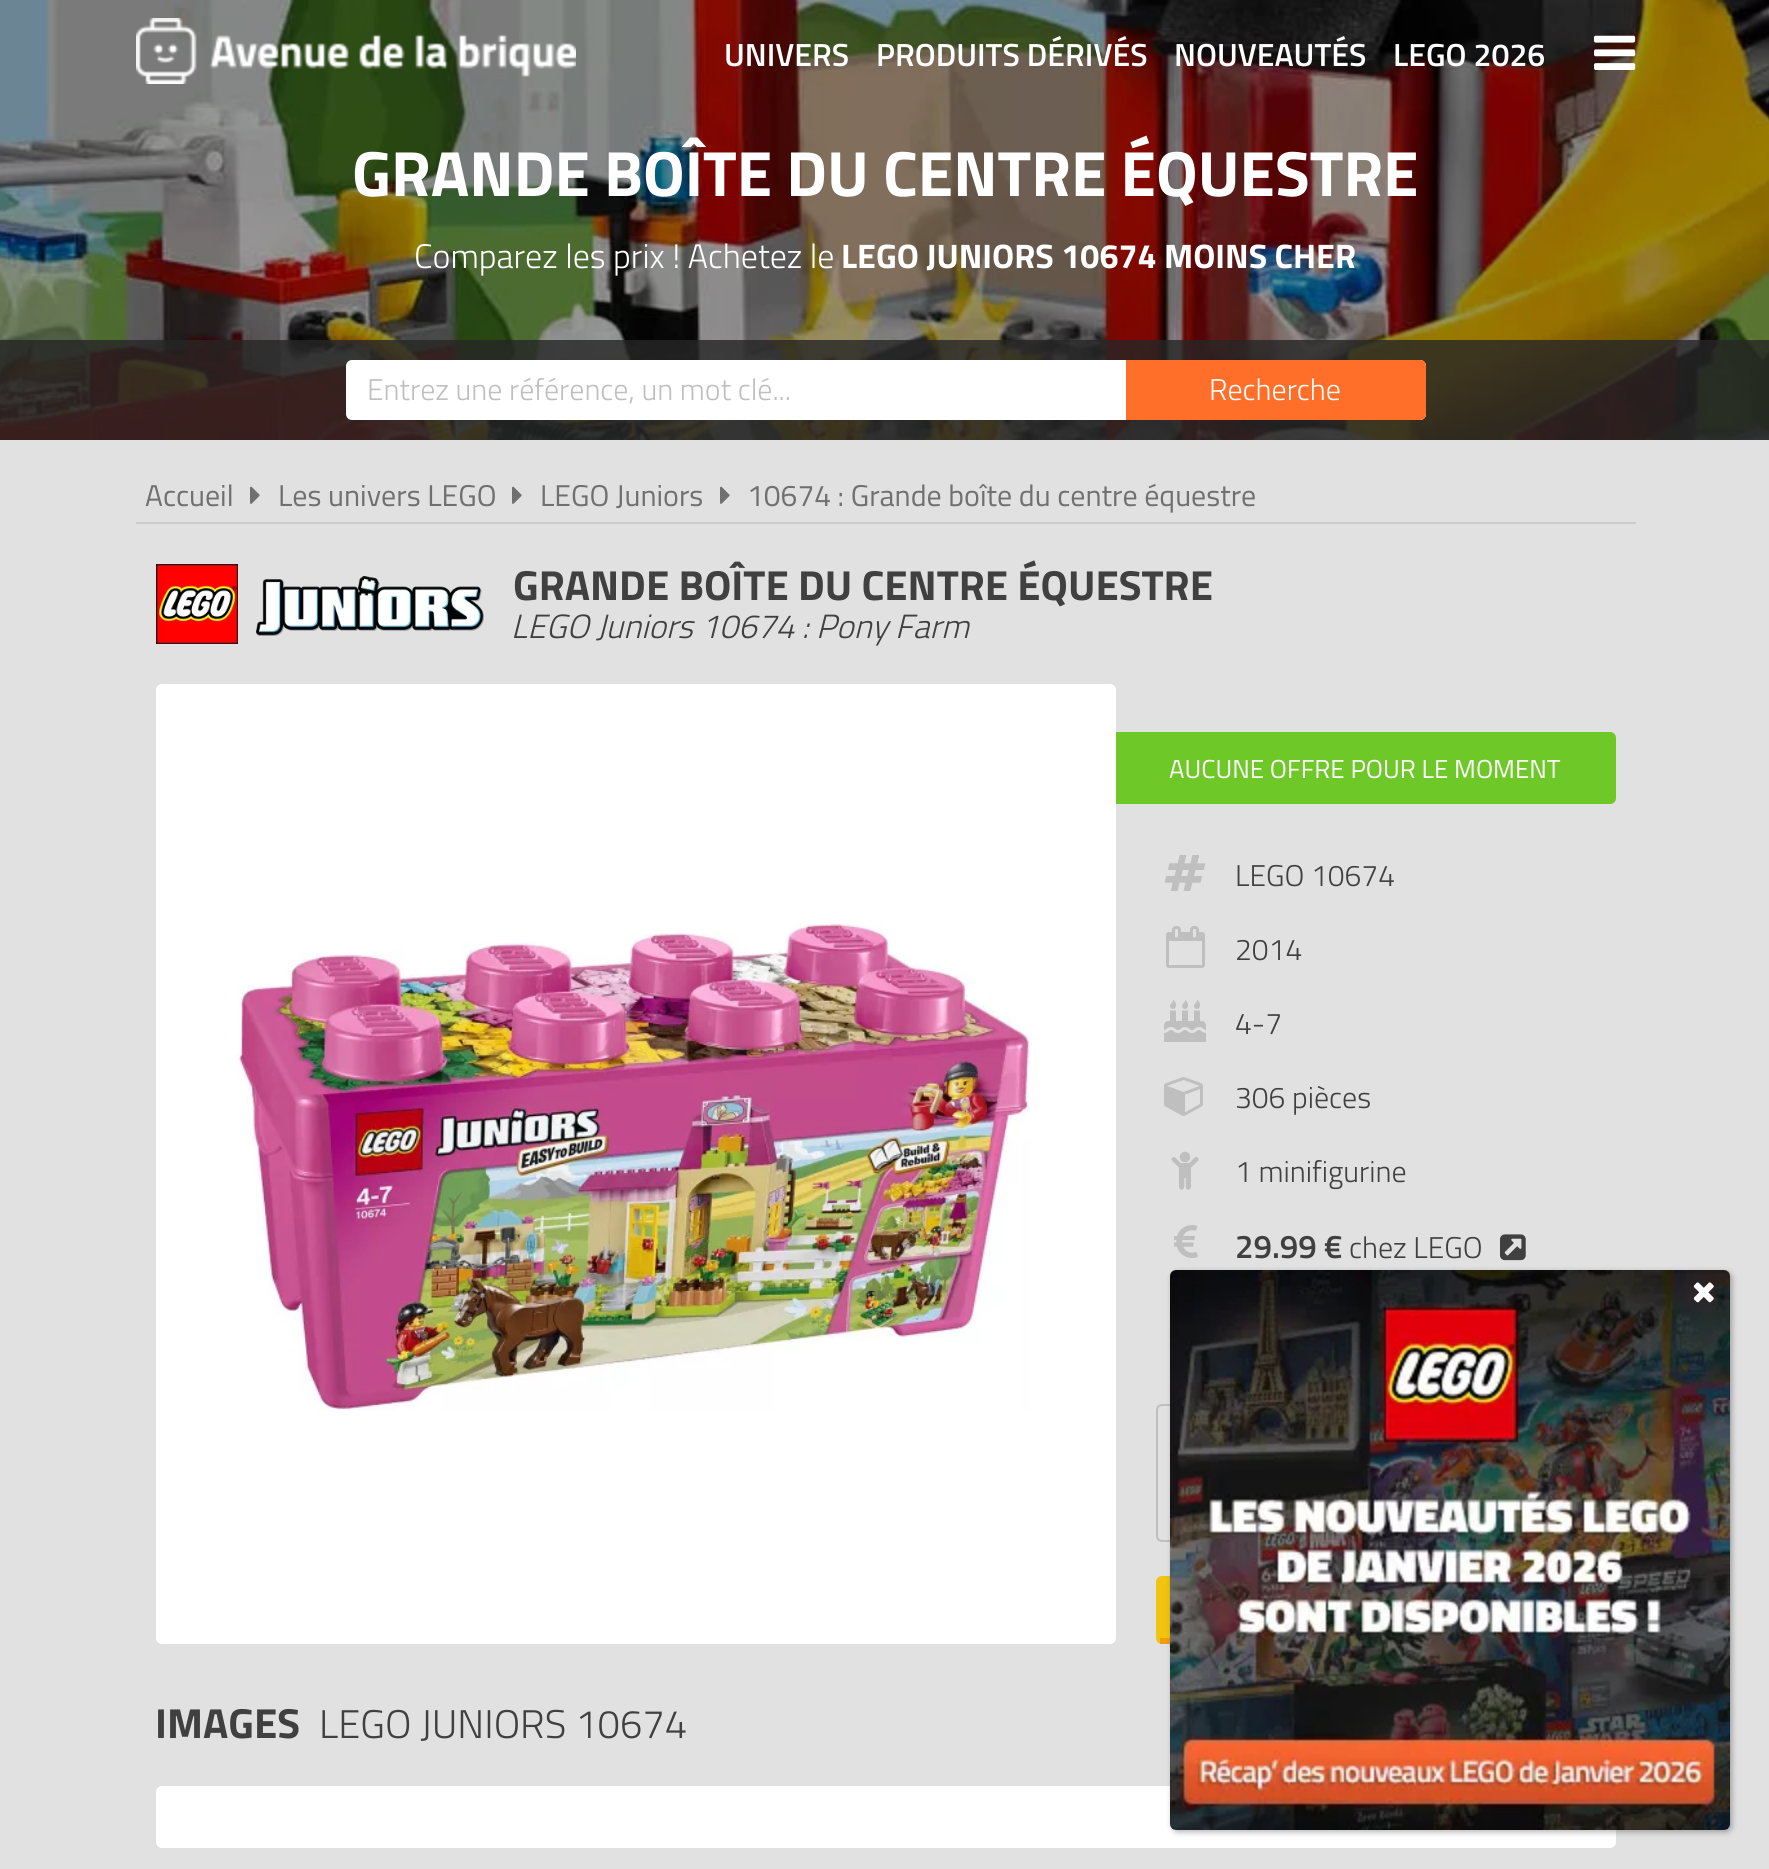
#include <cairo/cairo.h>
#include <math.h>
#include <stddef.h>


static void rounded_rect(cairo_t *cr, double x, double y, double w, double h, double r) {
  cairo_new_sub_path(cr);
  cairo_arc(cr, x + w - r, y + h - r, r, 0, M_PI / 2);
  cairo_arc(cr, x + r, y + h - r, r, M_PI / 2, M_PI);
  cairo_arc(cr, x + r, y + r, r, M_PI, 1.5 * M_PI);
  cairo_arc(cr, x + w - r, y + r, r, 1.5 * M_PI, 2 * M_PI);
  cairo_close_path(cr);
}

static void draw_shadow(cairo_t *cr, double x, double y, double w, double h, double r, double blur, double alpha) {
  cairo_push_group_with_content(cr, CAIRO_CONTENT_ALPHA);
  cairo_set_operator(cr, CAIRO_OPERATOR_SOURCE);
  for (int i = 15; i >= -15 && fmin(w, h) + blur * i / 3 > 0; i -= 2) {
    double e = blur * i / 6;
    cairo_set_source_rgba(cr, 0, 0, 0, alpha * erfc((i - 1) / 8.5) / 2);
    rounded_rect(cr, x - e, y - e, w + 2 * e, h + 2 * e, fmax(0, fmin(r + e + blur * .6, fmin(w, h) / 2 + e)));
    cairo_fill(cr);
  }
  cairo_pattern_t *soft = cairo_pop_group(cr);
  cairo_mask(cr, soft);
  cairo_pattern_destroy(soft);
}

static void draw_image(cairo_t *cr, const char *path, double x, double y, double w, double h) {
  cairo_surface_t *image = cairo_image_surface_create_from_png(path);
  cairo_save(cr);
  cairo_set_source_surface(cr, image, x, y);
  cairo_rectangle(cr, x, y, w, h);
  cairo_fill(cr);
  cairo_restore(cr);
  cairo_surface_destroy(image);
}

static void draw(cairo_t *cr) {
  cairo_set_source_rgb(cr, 225 / 255.0, 225 / 255.0, 225 / 255.0);
  cairo_paint(cr);
  draw_image(cr, "images/3.png", 0, 0, 1769, 440);
  draw_image(cr, "images/1.png", 136, 18, 440, 66);
  draw_image(cr, "images/2.png", 1594, 35, 42, 35);
  cairo_set_source_rgba(cr, 38 / 255.0, 38 / 255.0, 38 / 255.0, 0.8);
  cairo_rectangle(cr, 0, 340, 1769, 100);
  cairo_fill(cr);
  cairo_set_source_rgb(cr, 1, 1, 1);
  rounded_rect(cr, 347, 361, 1078, 58, 5);
  cairo_fill_preserve(cr);
  cairo_stroke(cr);
  cairo_set_source_rgb(cr, 1, 111 / 255.0, 42 / 255.0);
  cairo_new_path(cr);
  cairo_move_to(cr, 1127, 361);
  cairo_line_to(cr, 1420, 361);
  cairo_curve_to(cr, 1423, 361, 1425, 363, 1425, 366);
  cairo_line_to(cr, 1425, 414);
  cairo_curve_to(cr, 1425, 417, 1423, 419, 1420, 419);
  cairo_line_to(cr, 1127, 419);
  cairo_close_path(cr);
  cairo_fill_preserve(cr);
  cairo_stroke(cr);
  cairo_set_source_rgb(cr, 204 / 255.0, 204 / 255.0, 204 / 255.0);
  cairo_rectangle(cr, 136, 522, 1500, 2);
  cairo_fill(cr);
  draw_image(cr, "images/4.png", 250, 486, 10, 18);
  draw_image(cr, "images/4.png", 512, 486, 10, 18);
  draw_image(cr, "images/4.png", 720, 486, 10, 18);
  draw_image(cr, "images/5.png", 156, 564, 82, 80);
  draw_image(cr, "images/6.png", 256, 576, 228, 60);
  cairo_set_source_rgb(cr, 1, 1, 1);
  rounded_rect(cr, 156, 684, 960, 960, 6);
  cairo_fill(cr);
  draw_image(cr, "images/7.png", 237, 923, 794, 488);
  cairo_set_source_rgb(cr, 110 / 255.0, 200 / 255.0, 40 / 255.0);
  cairo_new_path(cr);
  cairo_move_to(cr, 1116, 732);
  cairo_line_to(cr, 1610, 732);
  cairo_curve_to(cr, 1613.5, 732, 1616, 734.5, 1616, 738);
  cairo_line_to(cr, 1616, 798);
  cairo_curve_to(cr, 1616, 801.5, 1613.5, 804, 1610, 804);
  cairo_line_to(cr, 1116, 804);
  cairo_close_path(cr);
  cairo_fill(cr);
  draw_image(cr, "images/8.png", 1164, 855, 42, 36);
  draw_image(cr, "images/9.png", 1166, 926, 39, 42);
  draw_image(cr, "images/10.png", 1164, 1000, 42, 42);
  draw_image(cr, "images/11.png", 1164, 1077, 39, 39);
  draw_image(cr, "images/12.png", 1171, 1151, 28, 39);
  draw_image(cr, "images/13.png", 1174, 1225, 24, 33);
  draw_image(cr, "images/14.png", 1500, 1234, 26, 27);
  rounded_rect(cr, 1157, 1405, 458, 136, 5);
  cairo_set_source_rgb(cr, 192 / 255.0, 191 / 255.0, 190 / 255.0);
  cairo_stroke(cr);
  cairo_set_source_rgb(cr, 241 / 255.0, 196 / 255.0, 15 / 255.0);
  rounded_rect(cr, 1156, 1576, 460, 68, 6);
  cairo_fill(cr);
  cairo_set_source_rgb(cr, 243 / 255.0, 156 / 255.0, 17 / 255.0);
  cairo_rectangle(cr, 1160, 1638, 10, 6);
  cairo_fill(cr);
  cairo_set_source_rgb(cr, 1, 1, 1);
  rounded_rect(cr, 156, 1786, 1460, 62, 6);
  cairo_fill(cr);
  cairo_set_source_rgb(cr, 0, 0, 0);
  draw_shadow(cr, 1172, 1272, 560, 560, 6, 3, 0.3);
  draw_image(cr, "images/15.png", 1170, 1270, 560, 560);
  draw_image(cr, "images/16.png", 1693, 1282, 21, 21);
  cairo_select_font_face(cr, "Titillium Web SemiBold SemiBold", CAIRO_FONT_SLANT_NORMAL, CAIRO_FONT_WEIGHT_NORMAL);
  cairo_set_font_size(cr, 32);
  cairo_set_source_rgb(cr, 1, 1, 1);
  cairo_move_to(cr, 724, 66);
  cairo_show_text(cr, "UNIVERS");
  cairo_move_to(cr, 876, 66);
  cairo_show_text(cr, "PRODUITS DÉRIVÉS");
  cairo_move_to(cr, 1174, 66);
  cairo_show_text(cr, "NOUVEAUTÉS");
  cairo_move_to(cr, 1393, 66);
  cairo_show_text(cr, "LEGO 2026");
  cairo_select_font_face(cr, "Titillium Web", CAIRO_FONT_SLANT_NORMAL, CAIRO_FONT_WEIGHT_BOLD);
  cairo_set_font_size(cr, 64);
  cairo_move_to(cr, 352, 196);
  cairo_show_text(cr, "GRANDE BOÎTE DU CENTRE ÉQUESTRE");
  cairo_select_font_face(cr, "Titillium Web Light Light", CAIRO_FONT_SLANT_NORMAL, CAIRO_FONT_WEIGHT_NORMAL);
  cairo_set_font_size(cr, 34);
  cairo_move_to(cr, 414, 268);
  cairo_show_text(cr, "Comparez les prix ! Achetez le");
  cairo_select_font_face(cr, "Titillium Web", CAIRO_FONT_SLANT_NORMAL, CAIRO_FONT_WEIGHT_BOLD);
  cairo_move_to(cr, 841, 268);
  cairo_show_text(cr, "LEGO JUNIORS 10674 MOINS CHER");
  cairo_select_font_face(cr, "Titillium Web Light Light", CAIRO_FONT_SLANT_NORMAL, CAIRO_FONT_WEIGHT_NORMAL);
  cairo_set_font_size(cr, 30);
  cairo_set_source_rgb(cr, 191 / 255.0, 191 / 255.0, 191 / 255.0);
  cairo_move_to(cr, 367, 400);
  cairo_show_text(cr, "Entrez une référence, un mot clé...");
  cairo_set_source_rgb(cr, 1, 1, 1);
  cairo_move_to(cr, 1209, 400);
  cairo_show_text(cr, "Recherche");
  cairo_select_font_face(cr, "Titillium Web", CAIRO_FONT_SLANT_NORMAL, CAIRO_FONT_WEIGHT_NORMAL);
  cairo_set_source_rgb(cr, 112 / 255.0, 112 / 255.0, 112 / 255.0);
  cairo_move_to(cr, 145, 506);
  cairo_show_text(cr, "Accueil");
  cairo_move_to(cr, 278, 506);
  cairo_show_text(cr, "Les univers LEGO");
  cairo_move_to(cr, 540, 506);
  cairo_show_text(cr, "LEGO Juniors");
  cairo_move_to(cr, 747, 506);
  cairo_show_text(cr, "10674 : Grande boîte du centre équestre");
  cairo_select_font_face(cr, "Titillium Web", CAIRO_FONT_SLANT_NORMAL, CAIRO_FONT_WEIGHT_BOLD);
  cairo_set_font_size(cr, 42);
  cairo_set_source_rgb(cr, 64 / 255.0, 64 / 255.0, 64 / 255.0);
  cairo_move_to(cr, 513, 600);
  cairo_show_text(cr, "GRANDE BOÎTE DU CENTRE ÉQUESTRE");
  cairo_select_font_face(cr, "Titillium Web Light Light", CAIRO_FONT_SLANT_ITALIC, CAIRO_FONT_WEIGHT_NORMAL);
  cairo_set_font_size(cr, 33.6);
  cairo_move_to(cr, 511, 638);
  cairo_show_text(cr, "LEGO Juniors 10674 : Pony Farm");
  cairo_select_font_face(cr, "Titillium Web", CAIRO_FONT_SLANT_NORMAL, CAIRO_FONT_WEIGHT_NORMAL);
  cairo_set_font_size(cr, 26);
  cairo_set_source_rgb(cr, 1, 1, 1);
  cairo_move_to(cr, 1169, 778);
  cairo_show_text(cr, "AUCUNE OFFRE POUR LE MOMENT");
  cairo_select_font_face(cr, "Titillium Web Light Light", CAIRO_FONT_SLANT_NORMAL, CAIRO_FONT_WEIGHT_NORMAL);
  cairo_set_font_size(cr, 30);
  cairo_set_source_rgb(cr, 64 / 255.0, 64 / 255.0, 64 / 255.0);
  cairo_move_to(cr, 1235, 886);
  cairo_show_text(cr, "LEGO 10674");
  cairo_move_to(cr, 1235, 960);
  cairo_show_text(cr, "2014");
  cairo_move_to(cr, 1235, 1034);
  cairo_show_text(cr, "4-7");
  cairo_move_to(cr, 1235, 1108);
  cairo_show_text(cr, "306 pièces");
  cairo_move_to(cr, 1235, 1182);
  cairo_show_text(cr, "1 minifigurine");
  cairo_select_font_face(cr, "Titillium Web SemiBold SemiBold", CAIRO_FONT_SLANT_NORMAL, CAIRO_FONT_WEIGHT_NORMAL);
  cairo_set_font_size(cr, 33);
  cairo_move_to(cr, 1235, 1258);
  cairo_show_text(cr, "29.99 €");
  cairo_select_font_face(cr, "Titillium Web Light Light", CAIRO_FONT_SLANT_NORMAL, CAIRO_FONT_WEIGHT_NORMAL);
  cairo_set_font_size(cr, 30);
  cairo_move_to(cr, 1349, 1258);
  cairo_show_text(cr, "chez LEGO");
  cairo_select_font_face(cr, "Titillium Web", CAIRO_FONT_SLANT_NORMAL, CAIRO_FONT_WEIGHT_BOLD);
  cairo_set_font_size(cr, 42);
  cairo_move_to(cr, 155, 1738);
  cairo_show_text(cr, "IMAGES");
  cairo_select_font_face(cr, "Titillium Web Light Light", CAIRO_FONT_SLANT_NORMAL, CAIRO_FONT_WEIGHT_NORMAL);
  cairo_set_font_size(cr, 40);
  cairo_move_to(cr, 319, 1738);
  cairo_show_text(cr, "LEGO JUNIORS 10674");
}

int main(void) {
  cairo_surface_t *surface = cairo_image_surface_create(CAIRO_FORMAT_RGB24, 1769, 1869);
  cairo_t *cr = cairo_create(surface);
  cairo_font_options_t *options = cairo_font_options_create();
  cairo_font_options_set_hint_metrics(options, CAIRO_HINT_METRICS_OFF);
  cairo_font_options_set_hint_style(options, CAIRO_HINT_STYLE_NONE);
  cairo_set_font_options(cr, options);
  cairo_set_miter_limit(cr, 4);
  draw(cr);
  cairo_surface_write_to_png(surface, "out.png");
  cairo_font_options_destroy(options);
  cairo_destroy(cr);
  cairo_surface_destroy(surface);
  return 0;
}
